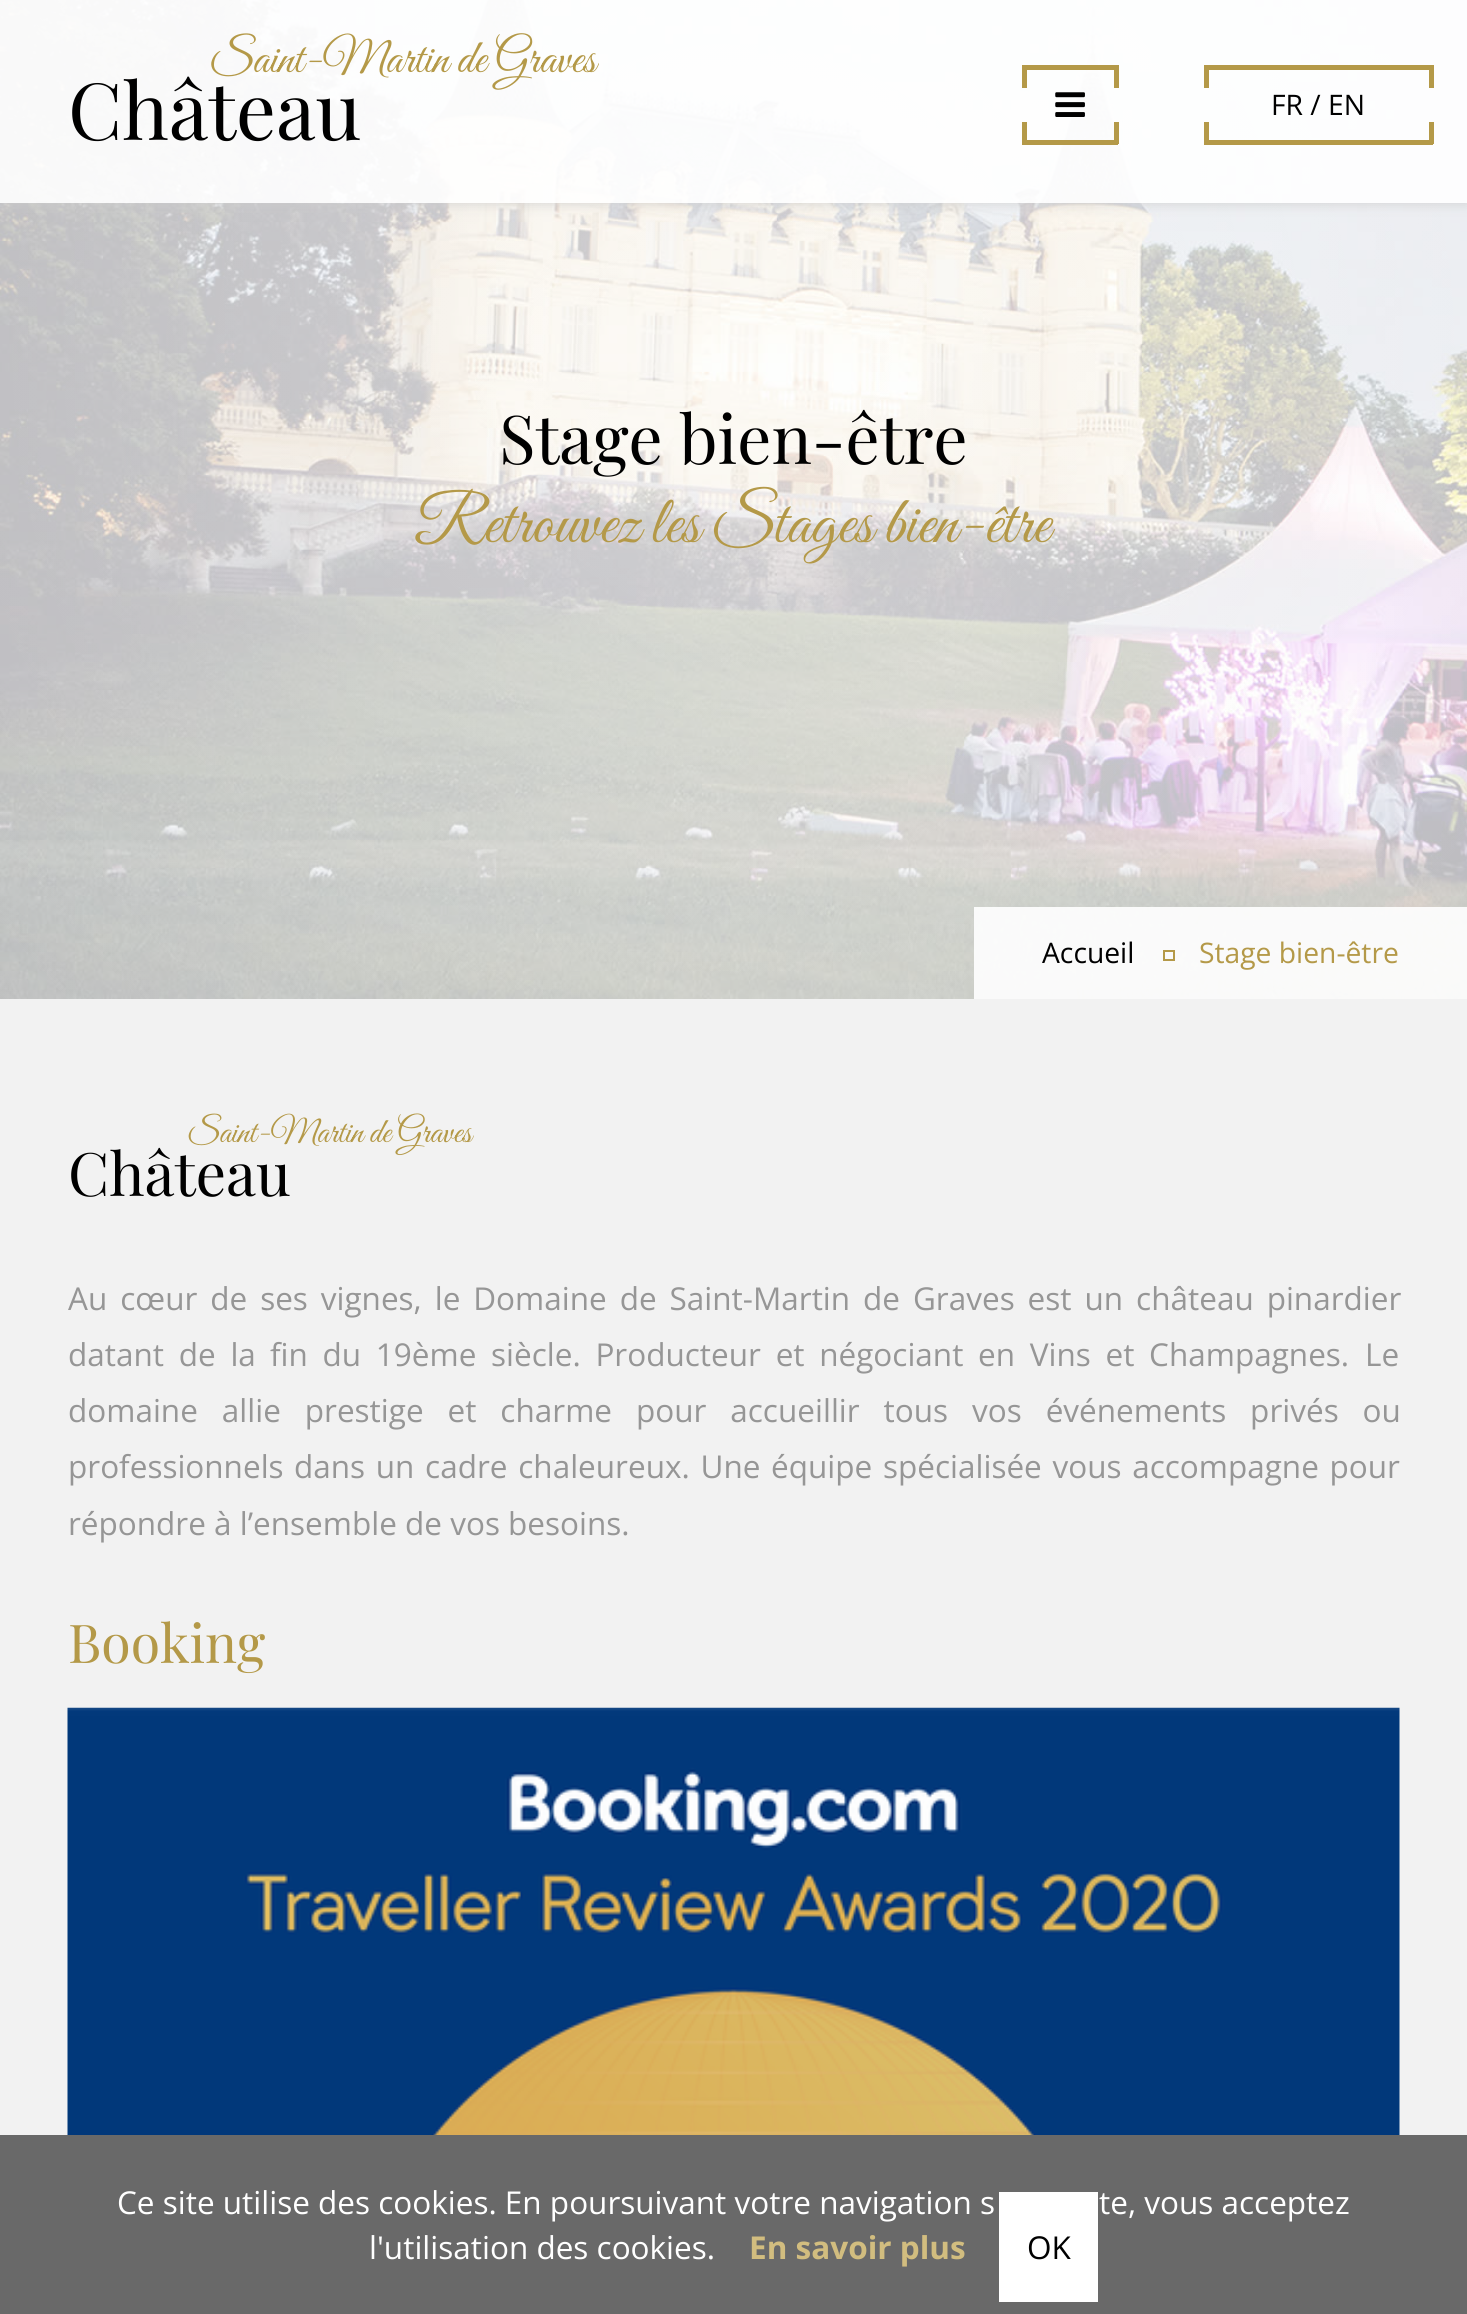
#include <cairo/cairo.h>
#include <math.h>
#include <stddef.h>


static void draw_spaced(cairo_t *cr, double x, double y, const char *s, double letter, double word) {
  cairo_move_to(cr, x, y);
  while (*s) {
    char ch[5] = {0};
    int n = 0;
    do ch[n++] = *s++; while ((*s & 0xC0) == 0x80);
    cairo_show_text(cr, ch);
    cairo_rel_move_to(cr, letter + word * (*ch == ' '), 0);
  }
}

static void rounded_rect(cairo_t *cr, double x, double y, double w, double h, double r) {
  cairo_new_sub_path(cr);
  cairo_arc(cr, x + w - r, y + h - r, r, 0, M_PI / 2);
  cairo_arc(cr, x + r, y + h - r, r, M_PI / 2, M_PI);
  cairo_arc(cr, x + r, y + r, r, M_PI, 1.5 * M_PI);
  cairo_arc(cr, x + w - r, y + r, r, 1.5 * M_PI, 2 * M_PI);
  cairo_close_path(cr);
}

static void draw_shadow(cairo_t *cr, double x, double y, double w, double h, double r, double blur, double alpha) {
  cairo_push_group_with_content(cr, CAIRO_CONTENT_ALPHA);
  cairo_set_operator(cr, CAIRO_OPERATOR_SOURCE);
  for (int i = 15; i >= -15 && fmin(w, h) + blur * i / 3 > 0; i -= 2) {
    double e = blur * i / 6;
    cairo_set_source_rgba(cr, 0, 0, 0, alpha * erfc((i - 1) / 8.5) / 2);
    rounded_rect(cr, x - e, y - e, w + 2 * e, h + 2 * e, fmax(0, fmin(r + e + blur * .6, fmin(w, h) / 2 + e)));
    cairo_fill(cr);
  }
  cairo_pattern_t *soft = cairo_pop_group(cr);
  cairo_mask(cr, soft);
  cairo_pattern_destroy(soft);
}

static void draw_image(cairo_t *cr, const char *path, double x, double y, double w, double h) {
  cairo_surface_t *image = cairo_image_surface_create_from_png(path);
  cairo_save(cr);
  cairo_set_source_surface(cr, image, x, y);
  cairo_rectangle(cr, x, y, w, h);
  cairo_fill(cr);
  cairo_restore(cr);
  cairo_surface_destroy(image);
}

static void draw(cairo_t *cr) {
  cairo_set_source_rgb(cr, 242 / 255.0, 242 / 255.0, 242 / 255.0);
  cairo_paint(cr);
  draw_image(cr, "images/2.png", 0, 0, 1467, 999);
  draw_image(cr, "images/3.png", 0, 0, 1467, 999);
  cairo_save(cr);
  cairo_set_fill_rule(cr, CAIRO_FILL_RULE_EVEN_ODD);
  cairo_new_path(cr);
  cairo_move_to(cr, 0, 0);
  cairo_line_to(cr, 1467, 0);
  cairo_line_to(cr, 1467, 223);
  cairo_line_to(cr, 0, 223);
  cairo_close_path(cr);
  cairo_move_to(cr, 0, 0);
  cairo_line_to(cr, 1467, 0);
  cairo_line_to(cr, 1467, 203);
  cairo_line_to(cr, 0, 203);
  cairo_close_path(cr);
  cairo_clip(cr);
  cairo_set_source_rgb(cr, 204 / 255.0, 204 / 255.0, 204 / 255.0);
  draw_shadow(cr, 0, 2, 1467, 203, 0, 5.5, 0.7);
  cairo_restore(cr);
  cairo_set_source_rgba(cr, 1, 1, 1, 0.9);
  cairo_rectangle(cr, 0, 0, 1467, 203);
  cairo_fill(cr);
  cairo_set_source_rgb(cr, 180 / 255.0, 153 / 255.0, 72 / 255.0);
  cairo_rectangle(cr, 1022, 65, 96, 5);
  cairo_fill(cr);
  cairo_rectangle(cr, 1114, 65, 5, 23);
  cairo_fill(cr);
  cairo_rectangle(cr, 1022, 65, 5, 23);
  cairo_fill(cr);
  draw_image(cr, "images/1.png", 1055, 92, 30, 25);
  cairo_rectangle(cr, 1114, 122, 5, 22);
  cairo_fill(cr);
  cairo_rectangle(cr, 1022, 140, 96, 5);
  cairo_fill(cr);
  cairo_rectangle(cr, 1022, 122, 5, 22);
  cairo_fill(cr);
  cairo_rectangle(cr, 1204, 65, 229, 5);
  cairo_fill(cr);
  cairo_rectangle(cr, 1429, 65, 5, 23);
  cairo_fill(cr);
  cairo_rectangle(cr, 1204, 65, 5, 23);
  cairo_fill(cr);
  cairo_rectangle(cr, 1429, 122, 5, 22);
  cairo_fill(cr);
  cairo_rectangle(cr, 1204, 140, 229, 5);
  cairo_fill(cr);
  cairo_rectangle(cr, 1204, 122, 5, 22);
  cairo_fill(cr);
  cairo_set_source_rgba(cr, 1, 1, 1, 0.9);
  cairo_rectangle(cr, 974, 907, 493, 92);
  cairo_fill(cr);
  cairo_rectangle(cr, 1164, 951, 10, 9);
  cairo_set_source_rgb(cr, 180 / 255.0, 153 / 255.0, 72 / 255.0);
  cairo_stroke(cr);
  draw_image(cr, "images/4.png", 67, 1707, 1333, 428);
  cairo_set_source_rgb(cr, 105 / 255.0, 105 / 255.0, 105 / 255.0);
  cairo_rectangle(cr, 0, 2135, 1467, 179);
  cairo_fill(cr);
  cairo_set_source_rgb(cr, 1, 1, 1);
  cairo_rectangle(cr, 999, 2192, 99, 110);
  cairo_fill(cr);
  cairo_select_font_face(cr, "Great Vibes", CAIRO_FONT_SLANT_NORMAL, CAIRO_FONT_WEIGHT_NORMAL);
  cairo_set_font_size(cr, 47.25);
  cairo_set_source_rgb(cr, 180 / 255.0, 153 / 255.0, 72 / 255.0);
  cairo_move_to(cr, 209, 72);
  cairo_show_text(cr, "Saint-Martin de Graves");
  cairo_select_font_face(cr, "Playfair Display", CAIRO_FONT_SLANT_NORMAL, CAIRO_FONT_WEIGHT_NORMAL);
  cairo_set_font_size(cr, 79);
  cairo_set_source_rgb(cr, 0, 0, 0);
  cairo_move_to(cr, 68, 140);
  cairo_show_text(cr, "Château");
  cairo_select_font_face(cr, "Open Sans", CAIRO_FONT_SLANT_NORMAL, CAIRO_FONT_WEIGHT_NORMAL);
  cairo_set_font_size(cr, 28.25);
  cairo_move_to(cr, 1271, 115);
  cairo_show_text(cr, "FR / EN");
  cairo_select_font_face(cr, "Playfair Display", CAIRO_FONT_SLANT_NORMAL, CAIRO_FONT_WEIGHT_NORMAL);
  cairo_set_font_size(cr, 67.5);
  cairo_move_to(cr, 499, 464);
  cairo_show_text(cr, "Stage bien-être");
  cairo_select_font_face(cr, "Great Vibes", CAIRO_FONT_SLANT_NORMAL, CAIRO_FONT_WEIGHT_NORMAL);
  cairo_set_source_rgb(cr, 180 / 255.0, 153 / 255.0, 72 / 255.0);
  draw_spaced(cr, 414, 542, "Retrouvez les Stages bien-être", 0, -1);
  cairo_select_font_face(cr, "Open Sans", CAIRO_FONT_SLANT_NORMAL, CAIRO_FONT_WEIGHT_NORMAL);
  cairo_set_font_size(cr, 28.25);
  cairo_set_source_rgb(cr, 0, 0, 0);
  cairo_move_to(cr, 1042, 963);
  cairo_show_text(cr, "Accueil");
  cairo_set_source_rgb(cr, 180 / 255.0, 153 / 255.0, 72 / 255.0);
  cairo_move_to(cr, 1199, 963);
  cairo_show_text(cr, "Stage bien-être");
  cairo_select_font_face(cr, "Great Vibes", CAIRO_FONT_SLANT_NORMAL, CAIRO_FONT_WEIGHT_NORMAL);
  cairo_set_font_size(cr, 34.75);
  cairo_move_to(cr, 187, 1142);
  cairo_show_text(cr, "Saint-Martin de Graves");
  cairo_select_font_face(cr, "Playfair Display", CAIRO_FONT_SLANT_NORMAL, CAIRO_FONT_WEIGHT_NORMAL);
  cairo_set_font_size(cr, 60);
  cairo_set_source_rgb(cr, 0, 0, 0);
  cairo_move_to(cr, 68, 1196);
  cairo_show_text(cr, "Château");
  cairo_select_font_face(cr, "Open Sans", CAIRO_FONT_SLANT_NORMAL, CAIRO_FONT_WEIGHT_NORMAL);
  cairo_set_font_size(cr, 31.5);
  cairo_set_source_rgb(cr, 150 / 255.0, 150 / 255.0, 150 / 255.0);
  draw_spaced(cr, 68, 1310, "Au cœur de ses vignes, le Domaine de Saint-Martin de Graves est un château pinardier", 0, 4.75);
  draw_spaced(cr, 68, 1366, "datant de la", 0, 6.5);
  draw_spaced(cr, 270, 1366, "fin du 19ème siècle. Producteur et négociant en Vins et Champagnes.", 0, 6.5);
  cairo_move_to(cr, 1365, 1366);
  cairo_show_text(cr, "Le");
  draw_spaced(cr, 68, 1422, "domaine allie prestige et charme pour accueillir tous vos événements privés ou", 0, 15.75);
  cairo_move_to(cr, 68, 1478);
  cairo_show_text(cr, "professionnels");
  draw_spaced(cr, 294, 1478, "dans un cadre chaleureux. Une équipe spécialisée vous accompagne pour", 0, 2.5);
  cairo_move_to(cr, 68, 1535);
  cairo_show_text(cr, "répondre à l’ensemble de vos besoins.");
  cairo_select_font_face(cr, "Playfair Display", CAIRO_FONT_SLANT_NORMAL, CAIRO_FONT_WEIGHT_NORMAL);
  cairo_set_font_size(cr, 53.5);
  cairo_set_source_rgb(cr, 180 / 255.0, 153 / 255.0, 72 / 255.0);
  cairo_move_to(cr, 68, 1663);
  cairo_show_text(cr, "Booking");
  cairo_select_font_face(cr, "Open Sans", CAIRO_FONT_SLANT_NORMAL, CAIRO_FONT_WEIGHT_NORMAL);
  cairo_set_font_size(cr, 31.5);
  cairo_set_source_rgb(cr, 1, 1, 1);
  cairo_move_to(cr, 117, 2214);
  cairo_show_text(cr, "Ce site utilise des cookies. En poursuivant votre navigation s");
  cairo_move_to(cr, 1099, 2214);
  cairo_show_text(cr, "te, vous acceptez");
  cairo_move_to(cr, 369, 2259);
  cairo_show_text(cr, "l'utilisation des cookies.");
  cairo_select_font_face(cr, "Open Sans", CAIRO_FONT_SLANT_NORMAL, CAIRO_FONT_WEIGHT_BOLD);
  cairo_set_source_rgb(cr, 210 / 255.0, 189 / 255.0, 127 / 255.0);
  cairo_move_to(cr, 749, 2259);
  cairo_show_text(cr, "En savoir plus");
  cairo_select_font_face(cr, "Open Sans", CAIRO_FONT_SLANT_NORMAL, CAIRO_FONT_WEIGHT_NORMAL);
  cairo_set_source_rgb(cr, 0, 0, 0);
  cairo_move_to(cr, 1027, 2259);
  cairo_show_text(cr, "OK");
}

int main(void) {
  cairo_surface_t *surface = cairo_image_surface_create(CAIRO_FORMAT_RGB24, 1467, 2314);
  cairo_t *cr = cairo_create(surface);
  cairo_font_options_t *options = cairo_font_options_create();
  cairo_font_options_set_hint_metrics(options, CAIRO_HINT_METRICS_OFF);
  cairo_font_options_set_hint_style(options, CAIRO_HINT_STYLE_NONE);
  cairo_set_font_options(cr, options);
  cairo_set_miter_limit(cr, 4);
  draw(cr);
  cairo_surface_write_to_png(surface, "out.png");
  cairo_font_options_destroy(options);
  cairo_destroy(cr);
  cairo_surface_destroy(surface);
  return 0;
}
